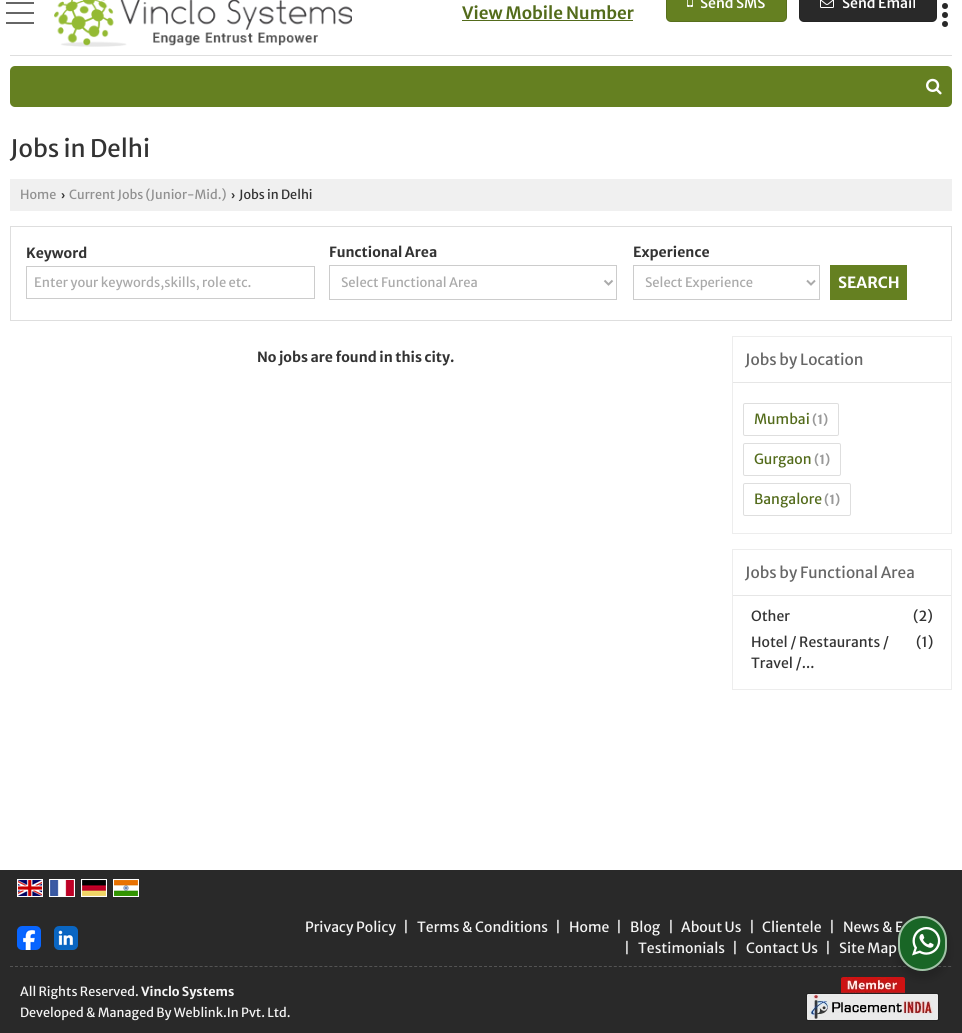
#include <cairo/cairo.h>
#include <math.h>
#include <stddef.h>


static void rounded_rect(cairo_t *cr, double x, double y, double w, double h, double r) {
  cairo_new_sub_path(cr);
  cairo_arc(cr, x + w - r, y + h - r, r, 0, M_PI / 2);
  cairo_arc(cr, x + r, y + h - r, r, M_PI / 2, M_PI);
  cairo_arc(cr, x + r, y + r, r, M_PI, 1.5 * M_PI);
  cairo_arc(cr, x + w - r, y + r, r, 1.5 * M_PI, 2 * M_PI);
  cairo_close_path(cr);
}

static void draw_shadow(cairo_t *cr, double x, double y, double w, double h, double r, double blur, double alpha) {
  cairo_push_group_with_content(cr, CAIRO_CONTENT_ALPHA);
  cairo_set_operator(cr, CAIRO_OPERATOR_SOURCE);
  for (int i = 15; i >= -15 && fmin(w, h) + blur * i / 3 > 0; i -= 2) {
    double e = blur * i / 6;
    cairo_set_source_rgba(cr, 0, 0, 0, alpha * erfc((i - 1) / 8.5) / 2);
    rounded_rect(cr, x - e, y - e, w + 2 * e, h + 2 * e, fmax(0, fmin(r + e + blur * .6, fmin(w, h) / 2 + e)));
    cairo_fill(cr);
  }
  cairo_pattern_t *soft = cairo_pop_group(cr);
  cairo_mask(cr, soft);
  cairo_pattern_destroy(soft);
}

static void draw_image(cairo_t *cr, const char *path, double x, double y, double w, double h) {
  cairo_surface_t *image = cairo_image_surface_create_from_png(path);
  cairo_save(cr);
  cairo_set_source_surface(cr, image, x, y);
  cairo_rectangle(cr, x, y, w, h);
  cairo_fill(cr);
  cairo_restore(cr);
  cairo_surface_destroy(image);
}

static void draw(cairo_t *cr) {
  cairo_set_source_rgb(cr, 1, 1, 1);
  cairo_paint(cr);
  draw_image(cr, "images/1.png", 54, 0, 298, 47);
  cairo_set_source_rgb(cr, 83 / 255.0, 107 / 255.0, 27 / 255.0);
  cairo_rectangle(cr, 462, 20, 171, 1);
  cairo_fill(cr);
  cairo_set_source_rgb(cr, 101 / 255.0, 128 / 255.0, 33 / 255.0);
  rounded_rect(cr, 666, -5, 121, 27, 5);
  cairo_fill(cr);
  rounded_rect(cr, 666.5, -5.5, 120, 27, 4.5);
  cairo_set_source_rgba(cr, 0, 0, 0, 0.13);
  cairo_set_line_width(cr, 1);
  cairo_stroke(cr);
  draw_image(cr, "images/2.png", 687, 0, 6, 7);
  cairo_set_source_rgb(cr, 41 / 255.0, 41 / 255.0, 41 / 255.0);
  rounded_rect(cr, 799, -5, 138, 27, 5);
  cairo_fill(cr);
  rounded_rect(cr, 799.5, -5.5, 137, 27, 4.5);
  cairo_set_source_rgba(cr, 0, 0, 0, 0.13);
  cairo_stroke(cr);
  draw_image(cr, "images/3.png", 820, 0, 14, 8);
  cairo_set_source_rgb(cr, 222 / 255.0, 222 / 255.0, 222 / 255.0);
  cairo_rectangle(cr, 10, 55, 942, 1);
  cairo_fill(cr);
  cairo_set_source_rgb(cr, 102 / 255.0, 102 / 255.0, 102 / 255.0);
  cairo_rectangle(cr, 6, 12, 28, 2);
  cairo_fill(cr);
  cairo_rectangle(cr, 6, 2, 28, 2);
  cairo_fill(cr);
  cairo_rectangle(cr, 6, 22, 28, 2);
  cairo_fill(cr);
  cairo_set_source_rgb(cr, 101 / 255.0, 128 / 255.0, 33 / 255.0);
  rounded_rect(cr, 10, 66, 942, 41, 5);
  cairo_fill(cr);
  draw_image(cr, "images/4.png", 926, 78, 16, 17);
  cairo_set_source_rgb(cr, 41 / 255.0, 41 / 255.0, 41 / 255.0);
  cairo_arc(cr, 945, 15, 3, 0, 2 * M_PI);
  cairo_fill(cr);
  cairo_arc(cr, 945, 6, 3, 0, 2 * M_PI);
  cairo_fill(cr);
  cairo_arc(cr, 945, 24, 3, 0, 2 * M_PI);
  cairo_fill(cr);
  cairo_set_source_rgb(cr, 240 / 255.0, 240 / 255.0, 240 / 255.0);
  cairo_rectangle(cr, 10, 179, 942, 32);
  cairo_fill(cr);
  cairo_rectangle(cr, 10.5, 226.5, 941, 94);
  cairo_set_source_rgb(cr, 222 / 255.0, 222 / 255.0, 222 / 255.0);
  cairo_stroke(cr);
  cairo_rectangle(cr, 26.5, 266.5, 288, 32);
  cairo_set_source_rgb(cr, 204 / 255.0, 204 / 255.0, 204 / 255.0);
  cairo_stroke(cr);
  cairo_rectangle(cr, 329.5, 265.5, 287, 34);
  cairo_stroke(cr);
  cairo_new_path(cr);
  cairo_move_to(cr, 604.5, 280.5);
  cairo_line_to(cr, 608.5, 284.5);
  cairo_line_to(cr, 612.5, 280.5);
  cairo_set_source_rgb(cr, 170 / 255.0, 170 / 255.0, 170 / 255.0);
  cairo_set_line_width(cr, 2);
  cairo_stroke(cr);
  cairo_rectangle(cr, 633.5, 265.5, 186, 34);
  cairo_set_source_rgb(cr, 204 / 255.0, 204 / 255.0, 204 / 255.0);
  cairo_set_line_width(cr, 1);
  cairo_stroke(cr);
  cairo_new_path(cr);
  cairo_move_to(cr, 807, 280.5);
  cairo_line_to(cr, 811, 284.5);
  cairo_line_to(cr, 815, 280.5);
  cairo_set_source_rgb(cr, 170 / 255.0, 170 / 255.0, 170 / 255.0);
  cairo_set_line_width(cr, 2);
  cairo_stroke(cr);
  cairo_set_source_rgb(cr, 101 / 255.0, 128 / 255.0, 33 / 255.0);
  cairo_rectangle(cr, 830, 265, 77, 35);
  cairo_fill(cr);
  cairo_rectangle(cr, 732.5, 336.5, 219, 197);
  cairo_set_source_rgb(cr, 237 / 255.0, 237 / 255.0, 237 / 255.0);
  cairo_set_line_width(cr, 1);
  cairo_stroke(cr);
  cairo_set_source_rgb(cr, 230 / 255.0, 230 / 255.0, 230 / 255.0);
  cairo_rectangle(cr, 733, 382, 218, 1);
  cairo_fill(cr);
  rounded_rect(cr, 743.5, 403.5, 95, 32, 1.5);
  cairo_set_source_rgb(cr, 222 / 255.0, 222 / 255.0, 222 / 255.0);
  cairo_stroke(cr);
  rounded_rect(cr, 743.5, 443.5, 97, 32, 1.5);
  cairo_stroke(cr);
  rounded_rect(cr, 743.5, 483.5, 107, 32, 1.5);
  cairo_stroke(cr);
  cairo_rectangle(cr, 732.5, 549.5, 219, 140);
  cairo_set_source_rgb(cr, 237 / 255.0, 237 / 255.0, 237 / 255.0);
  cairo_stroke(cr);
  cairo_set_source_rgb(cr, 230 / 255.0, 230 / 255.0, 230 / 255.0);
  cairo_rectangle(cr, 733, 595, 218, 1);
  cairo_fill(cr);
  cairo_set_source_rgb(cr, 41 / 255.0, 41 / 255.0, 41 / 255.0);
  cairo_rectangle(cr, 0, 870, 962, 163);
  cairo_fill(cr);
  cairo_rectangle(cr, 17.5, 879.5, 25, 17);
  cairo_set_source_rgb(cr, 1, 1, 1);
  cairo_stroke(cr);
  cairo_rectangle(cr, 49.5, 879.5, 25, 17);
  cairo_stroke(cr);
  cairo_rectangle(cr, 81.5, 879.5, 25, 17);
  cairo_stroke(cr);
  cairo_rectangle(cr, 113.5, 879.5, 25, 17);
  cairo_stroke(cr);
  draw_image(cr, "images/5.png", 18, 880, 24, 16);
  draw_image(cr, "images/6.png", 50, 880, 24, 16);
  draw_image(cr, "images/7.png", 82, 880, 24, 16);
  draw_image(cr, "images/8.png", 114, 880, 24, 16);
  draw_image(cr, "images/9.png", 17, 926, 24, 24);
  draw_image(cr, "images/10.png", 54, 926, 24, 24);
  cairo_new_path(cr);
  cairo_move_to(cr, 10, 966.5);
  cairo_line_to(cr, 952, 966.5);
  cairo_set_source_rgb(cr, 84 / 255.0, 84 / 255.0, 84 / 255.0);
  cairo_set_dash(cr, (double[]){3, 1.99}, 2, 0);
  cairo_stroke(cr);
  draw_image(cr, "images/11.png", 806, 977, 133, 44);
  cairo_set_source_rgb(cr, 0, 0, 0);
  draw_shadow(cr, 896, 920, 53, 59, 26.5, 4, 0.14);
  cairo_select_font_face(cr, "Merriweather Sans SemiBold", CAIRO_FONT_SLANT_NORMAL, CAIRO_FONT_WEIGHT_NORMAL);
  cairo_set_font_size(cr, 17);
  cairo_set_source_rgb(cr, 83 / 255.0, 107 / 255.0, 27 / 255.0);
  cairo_move_to(cr, 462, 19);
  cairo_show_text(cr, "View Mobile Number");
  cairo_select_font_face(cr, "Merriweather Sans Medium", CAIRO_FONT_SLANT_NORMAL, CAIRO_FONT_WEIGHT_NORMAL);
  cairo_set_font_size(cr, 14);
  cairo_set_source_rgb(cr, 1, 1, 1);
  cairo_move_to(cr, 700, 8);
  cairo_show_text(cr, "Send SMS");
  cairo_move_to(cr, 842, 8);
  cairo_show_text(cr, "Send Email");
  cairo_select_font_face(cr, "Merriweather Sans", CAIRO_FONT_SLANT_NORMAL, CAIRO_FONT_WEIGHT_NORMAL);
  cairo_set_font_size(cr, 24);
  cairo_set_source_rgb(cr, 51 / 255.0, 51 / 255.0, 51 / 255.0);
  cairo_move_to(cr, 10, 157);
  cairo_show_text(cr, "Jobs in Delhi");
  cairo_set_font_size(cr, 12.6);
  cairo_set_source_rgb(cr, 144 / 255.0, 144 / 255.0, 144 / 255.0);
  cairo_move_to(cr, 20, 199);
  cairo_show_text(cr, "Home");
  cairo_select_font_face(cr, "Liberation Sans", CAIRO_FONT_SLANT_NORMAL, CAIRO_FONT_WEIGHT_BOLD);
  cairo_set_source_rgb(cr, 51 / 255.0, 51 / 255.0, 51 / 255.0);
  cairo_move_to(cr, 61, 199);
  cairo_show_text(cr, "›");
  cairo_select_font_face(cr, "Merriweather Sans", CAIRO_FONT_SLANT_NORMAL, CAIRO_FONT_WEIGHT_NORMAL);
  cairo_set_source_rgb(cr, 144 / 255.0, 144 / 255.0, 144 / 255.0);
  cairo_move_to(cr, 69, 199);
  cairo_show_text(cr, "Current Jobs (Junior-Mid.)");
  cairo_select_font_face(cr, "Liberation Sans", CAIRO_FONT_SLANT_NORMAL, CAIRO_FONT_WEIGHT_BOLD);
  cairo_set_source_rgb(cr, 51 / 255.0, 51 / 255.0, 51 / 255.0);
  cairo_move_to(cr, 231, 199);
  cairo_show_text(cr, "›");
  cairo_select_font_face(cr, "Merriweather Sans", CAIRO_FONT_SLANT_NORMAL, CAIRO_FONT_WEIGHT_NORMAL);
  cairo_move_to(cr, 239, 199);
  cairo_show_text(cr, "Jobs in Delhi");
  cairo_select_font_face(cr, "Merriweather Sans", CAIRO_FONT_SLANT_NORMAL, CAIRO_FONT_WEIGHT_BOLD);
  cairo_set_font_size(cr, 14);
  cairo_move_to(cr, 26, 258);
  cairo_show_text(cr, "Keyword");
  cairo_select_font_face(cr, "Merriweather Sans", CAIRO_FONT_SLANT_NORMAL, CAIRO_FONT_WEIGHT_NORMAL);
  cairo_set_font_size(cr, 13);
  cairo_set_source_rgb(cr, 170 / 255.0, 170 / 255.0, 170 / 255.0);
  cairo_move_to(cr, 34, 287);
  cairo_show_text(cr, "Enter your keywords,skills, role etc.");
  cairo_select_font_face(cr, "Merriweather Sans", CAIRO_FONT_SLANT_NORMAL, CAIRO_FONT_WEIGHT_BOLD);
  cairo_set_font_size(cr, 14);
  cairo_set_source_rgb(cr, 51 / 255.0, 51 / 255.0, 51 / 255.0);
  cairo_move_to(cr, 329, 257);
  cairo_show_text(cr, "Functional Area");
  cairo_select_font_face(cr, "Merriweather Sans", CAIRO_FONT_SLANT_NORMAL, CAIRO_FONT_WEIGHT_NORMAL);
  cairo_set_font_size(cr, 13);
  cairo_set_source_rgb(cr, 170 / 255.0, 170 / 255.0, 170 / 255.0);
  cairo_move_to(cr, 341, 287);
  cairo_show_text(cr, "Select Functional Area");
  cairo_select_font_face(cr, "Merriweather Sans", CAIRO_FONT_SLANT_NORMAL, CAIRO_FONT_WEIGHT_BOLD);
  cairo_set_font_size(cr, 14);
  cairo_set_source_rgb(cr, 51 / 255.0, 51 / 255.0, 51 / 255.0);
  cairo_move_to(cr, 633, 257);
  cairo_show_text(cr, "Experience");
  cairo_select_font_face(cr, "Merriweather Sans", CAIRO_FONT_SLANT_NORMAL, CAIRO_FONT_WEIGHT_NORMAL);
  cairo_set_font_size(cr, 13);
  cairo_set_source_rgb(cr, 170 / 255.0, 170 / 255.0, 170 / 255.0);
  cairo_move_to(cr, 645, 287);
  cairo_show_text(cr, "Select Experience");
  cairo_select_font_face(cr, "Merriweather Sans", CAIRO_FONT_SLANT_NORMAL, CAIRO_FONT_WEIGHT_BOLD);
  cairo_set_font_size(cr, 15.4);
  cairo_set_source_rgb(cr, 1, 1, 1);
  cairo_move_to(cr, 838, 288);
  cairo_show_text(cr, "SEARCH");
  cairo_set_font_size(cr, 14);
  cairo_set_source_rgb(cr, 51 / 255.0, 51 / 255.0, 51 / 255.0);
  cairo_move_to(cr, 257, 362);
  cairo_show_text(cr, "No jobs are found in this city.");
  cairo_select_font_face(cr, "Merriweather Sans", CAIRO_FONT_SLANT_NORMAL, CAIRO_FONT_WEIGHT_NORMAL);
  cairo_set_font_size(cr, 15.4);
  cairo_set_source_rgb(cr, 102 / 255.0, 102 / 255.0, 102 / 255.0);
  cairo_move_to(cr, 745, 365);
  cairo_show_text(cr, "Jobs by Location");
  cairo_set_font_size(cr, 14);
  cairo_set_source_rgb(cr, 83 / 255.0, 107 / 255.0, 27 / 255.0);
  cairo_move_to(cr, 754, 424);
  cairo_show_text(cr, "Mumbai");
  cairo_select_font_face(cr, "Merriweather Sans", CAIRO_FONT_SLANT_NORMAL, CAIRO_FONT_WEIGHT_BOLD);
  cairo_set_font_size(cr, 12.6);
  cairo_set_source_rgb(cr, 153 / 255.0, 153 / 255.0, 153 / 255.0);
  cairo_move_to(cr, 812, 424);
  cairo_show_text(cr, "(1)");
  cairo_select_font_face(cr, "Merriweather Sans", CAIRO_FONT_SLANT_NORMAL, CAIRO_FONT_WEIGHT_NORMAL);
  cairo_set_font_size(cr, 14);
  cairo_set_source_rgb(cr, 83 / 255.0, 107 / 255.0, 27 / 255.0);
  cairo_move_to(cr, 754, 464);
  cairo_show_text(cr, "Gurgaon");
  cairo_select_font_face(cr, "Merriweather Sans", CAIRO_FONT_SLANT_NORMAL, CAIRO_FONT_WEIGHT_BOLD);
  cairo_set_font_size(cr, 12.6);
  cairo_set_source_rgb(cr, 153 / 255.0, 153 / 255.0, 153 / 255.0);
  cairo_move_to(cr, 814, 464);
  cairo_show_text(cr, "(1)");
  cairo_select_font_face(cr, "Merriweather Sans", CAIRO_FONT_SLANT_NORMAL, CAIRO_FONT_WEIGHT_NORMAL);
  cairo_set_font_size(cr, 14);
  cairo_set_source_rgb(cr, 83 / 255.0, 107 / 255.0, 27 / 255.0);
  cairo_move_to(cr, 754, 504);
  cairo_show_text(cr, "Bangalore");
  cairo_select_font_face(cr, "Merriweather Sans", CAIRO_FONT_SLANT_NORMAL, CAIRO_FONT_WEIGHT_BOLD);
  cairo_set_font_size(cr, 12.6);
  cairo_set_source_rgb(cr, 153 / 255.0, 153 / 255.0, 153 / 255.0);
  cairo_move_to(cr, 824, 504);
  cairo_show_text(cr, "(1)");
  cairo_select_font_face(cr, "Merriweather Sans", CAIRO_FONT_SLANT_NORMAL, CAIRO_FONT_WEIGHT_NORMAL);
  cairo_set_font_size(cr, 15.4);
  cairo_set_source_rgb(cr, 102 / 255.0, 102 / 255.0, 102 / 255.0);
  cairo_move_to(cr, 745, 578);
  cairo_show_text(cr, "Jobs by Functional Area");
  cairo_set_font_size(cr, 14);
  cairo_set_source_rgb(cr, 51 / 255.0, 51 / 255.0, 51 / 255.0);
  cairo_move_to(cr, 751, 621);
  cairo_show_text(cr, "Other");
  cairo_move_to(cr, 913, 621);
  cairo_show_text(cr, "(2)");
  cairo_move_to(cr, 751, 647);
  cairo_show_text(cr, "Hotel / Restaurants /");
  cairo_move_to(cr, 916, 647);
  cairo_show_text(cr, "(1)");
  cairo_move_to(cr, 751, 668);
  cairo_show_text(cr, "Travel /...");
  cairo_set_source_rgb(cr, 244 / 255.0, 244 / 255.0, 244 / 255.0);
  cairo_move_to(cr, 305, 932);
  cairo_show_text(cr, "Privacy Policy");
  cairo_move_to(cr, 403, 932);
  cairo_show_text(cr, "|");
  cairo_move_to(cr, 417, 932);
  cairo_show_text(cr, "Terms & Conditions");
  cairo_move_to(cr, 555, 932);
  cairo_show_text(cr, "|");
  cairo_move_to(cr, 569, 932);
  cairo_show_text(cr, "Home");
  cairo_move_to(cr, 616, 932);
  cairo_show_text(cr, "|");
  cairo_move_to(cr, 630, 932);
  cairo_show_text(cr, "Blog");
  cairo_move_to(cr, 668, 932);
  cairo_show_text(cr, "|");
  cairo_move_to(cr, 681, 932);
  cairo_show_text(cr, "About Us");
  cairo_move_to(cr, 749, 932);
  cairo_show_text(cr, "|");
  cairo_move_to(cr, 762, 932);
  cairo_show_text(cr, "Clientele");
  cairo_move_to(cr, 829, 932);
  cairo_show_text(cr, "|");
  cairo_move_to(cr, 843, 932);
  cairo_show_text(cr, "News & E");
  cairo_move_to(cr, 624, 953);
  cairo_show_text(cr, "|");
  cairo_move_to(cr, 638, 953);
  cairo_show_text(cr, "Testimonials");
  cairo_move_to(cr, 732, 953);
  cairo_show_text(cr, "|");
  cairo_move_to(cr, 746, 953);
  cairo_show_text(cr, "Contact Us");
  cairo_move_to(cr, 825, 953);
  cairo_show_text(cr, "|");
  cairo_move_to(cr, 839, 953);
  cairo_show_text(cr, "Site Map");
  cairo_set_font_size(cr, 12.6);
  cairo_move_to(cr, 20, 996);
  cairo_show_text(cr, "All Rights Reserved.");
  cairo_select_font_face(cr, "Merriweather Sans", CAIRO_FONT_SLANT_NORMAL, CAIRO_FONT_WEIGHT_BOLD);
  cairo_move_to(cr, 141, 996);
  cairo_show_text(cr, "Vinclo Systems");
  cairo_select_font_face(cr, "Merriweather Sans", CAIRO_FONT_SLANT_NORMAL, CAIRO_FONT_WEIGHT_NORMAL);
  cairo_move_to(cr, 20, 1017);
  cairo_show_text(cr, "Developed & Managed By Weblink.In Pvt. Ltd.");
  cairo_set_source_rgb(cr, 25 / 255.0, 102 / 255.0, 38 / 255.0);
  rounded_rect(cr, 898, 916, 49, 55, 24.5);
  cairo_fill(cr);
  rounded_rect(cr, 899, 917, 47, 53, 23.5);
  cairo_set_source_rgba(cr, 1, 1, 1, 0.6);
  cairo_set_line_width(cr, 2);
  cairo_set_dash(cr, NULL, 0, 0);
  cairo_stroke(cr);
  draw_image(cr, "images/12.png", 912, 927, 29, 29);
}

int main(void) {
  cairo_surface_t *surface = cairo_image_surface_create(CAIRO_FORMAT_RGB24, 962, 1033);
  cairo_t *cr = cairo_create(surface);
  cairo_font_options_t *options = cairo_font_options_create();
  cairo_font_options_set_hint_metrics(options, CAIRO_HINT_METRICS_OFF);
  cairo_font_options_set_hint_style(options, CAIRO_HINT_STYLE_NONE);
  cairo_set_font_options(cr, options);
  cairo_set_miter_limit(cr, 4);
  draw(cr);
  cairo_surface_write_to_png(surface, "out.png");
  cairo_font_options_destroy(options);
  cairo_destroy(cr);
  cairo_surface_destroy(surface);
  return 0;
}
